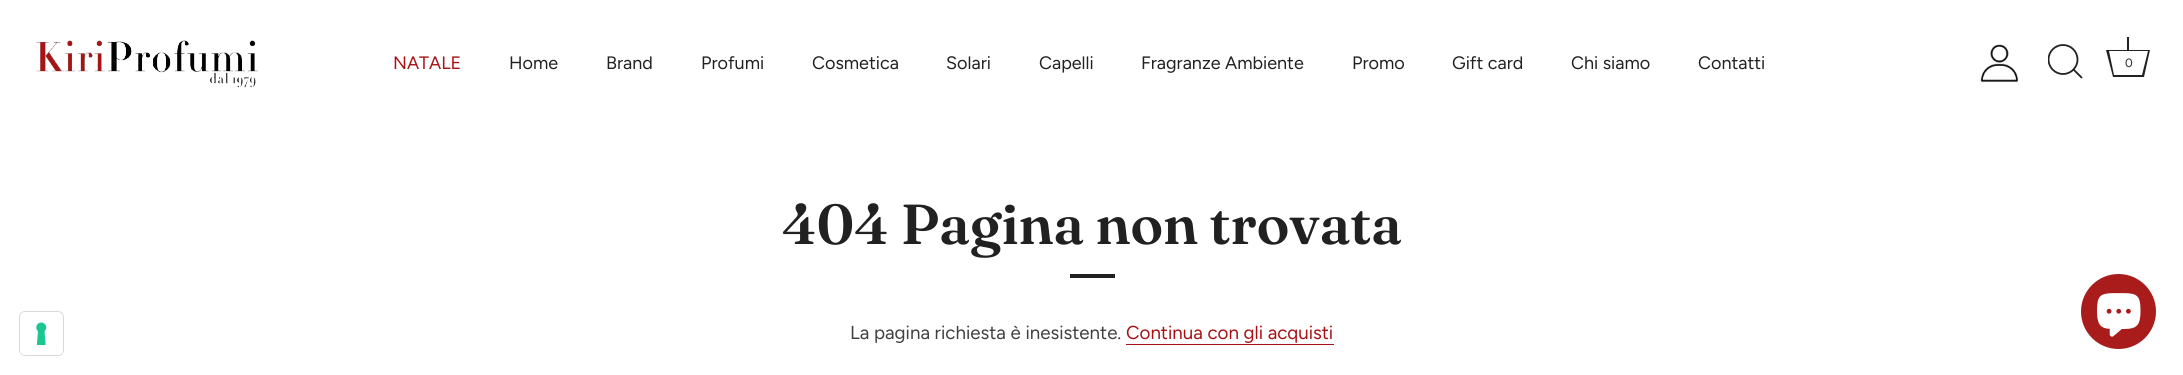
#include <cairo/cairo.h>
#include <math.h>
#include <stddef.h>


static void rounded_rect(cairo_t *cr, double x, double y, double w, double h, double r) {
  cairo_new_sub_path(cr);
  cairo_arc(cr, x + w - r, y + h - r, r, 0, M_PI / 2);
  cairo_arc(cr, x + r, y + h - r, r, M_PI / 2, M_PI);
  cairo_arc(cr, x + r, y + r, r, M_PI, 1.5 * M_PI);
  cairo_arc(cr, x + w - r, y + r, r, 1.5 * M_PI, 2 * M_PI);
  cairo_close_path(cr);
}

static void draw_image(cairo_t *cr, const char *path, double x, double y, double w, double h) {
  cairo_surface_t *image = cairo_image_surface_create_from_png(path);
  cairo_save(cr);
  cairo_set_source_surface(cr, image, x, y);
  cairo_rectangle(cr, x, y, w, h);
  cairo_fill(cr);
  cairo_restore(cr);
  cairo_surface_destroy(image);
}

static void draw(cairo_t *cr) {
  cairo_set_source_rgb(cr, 1, 1, 1);
  cairo_paint(cr);
  draw_image(cr, "images/1.png", 36, 40, 222, 48);
  draw_image(cr, "images/2.png", 1980, 44, 38, 38);
  cairo_save(cr);
  cairo_rectangle(cr, 2048, 44, 36, 36);
  cairo_clip(cr);
  cairo_arc(cr, 2063, 59.5, 14.5, 0, 2 * M_PI);
  cairo_set_source_rgb(cr, 33 / 255.0, 33 / 255.0, 33 / 255.0);
  cairo_set_line_width(cr, 1.8);
  cairo_stroke(cr);
  cairo_restore(cr);
  cairo_new_path(cr);
  cairo_move_to(cr, 2081.5, 77.5);
  cairo_line_to(cr, 2073.5, 69.5);
  cairo_set_source_rgb(cr, 33 / 255.0, 33 / 255.0, 33 / 255.0);
  cairo_set_line_width(cr, 1.8);
  cairo_set_line_cap(cr, CAIRO_LINE_CAP_ROUND);
  cairo_set_line_join(cr, CAIRO_LINE_JOIN_ROUND);
  cairo_stroke(cr);
  cairo_rectangle(cr, 2127, 37, 2, 13);
  cairo_fill(cr);
  cairo_new_path(cr);
  cairo_move_to(cr, 2148, 51);
  cairo_line_to(cr, 2142, 75);
  cairo_line_to(cr, 2114, 75);
  cairo_line_to(cr, 2109, 51);
  cairo_line_to(cr, 2148, 51);
  cairo_move_to(cr, 2150, 50);
  cairo_line_to(cr, 2106, 50);
  cairo_line_to(cr, 2113, 77);
  cairo_line_to(cr, 2144, 77);
  cairo_close_path(cr);
  cairo_fill(cr);
  rounded_rect(cr, 19.5, 311.5, 44, 44, 5.5);
  cairo_set_source_rgb(cr, 217 / 255.0, 217 / 255.0, 217 / 255.0);
  cairo_set_line_width(cr, 1);
  cairo_set_line_cap(cr, CAIRO_LINE_CAP_BUTT);
  cairo_set_line_join(cr, CAIRO_LINE_JOIN_MITER);
  cairo_stroke(cr);
  cairo_set_source_rgb(cr, 1, 1, 1);
  rounded_rect(cr, 20, 313, 43, 42, 5);
  cairo_fill(cr);
  draw_image(cr, "images/3.png", 36, 322, 11, 23);
  cairo_set_source_rgb(cr, 33 / 255.0, 33 / 255.0, 33 / 255.0);
  cairo_rectangle(cr, 1070, 274, 45, 4);
  cairo_fill(cr);
  cairo_set_source_rgb(cr, 167 / 255.0, 17 / 255.0, 19 / 255.0);
  cairo_rectangle(cr, 1126, 344, 208, 1);
  cairo_fill(cr);
  cairo_set_source_rgb(cr, 168 / 255.0, 29 / 255.0, 28 / 255.0);
  cairo_arc(cr, 2118.5, 311.5, 37.5, 0, 2 * M_PI);
  cairo_fill(cr);
  draw_image(cr, "images/4.png", 2097, 293, 44, 44);
  cairo_select_font_face(cr, "Figtree", CAIRO_FONT_SLANT_NORMAL, CAIRO_FONT_WEIGHT_NORMAL);
  cairo_set_font_size(cr, 18);
  cairo_set_source_rgb(cr, 167 / 255.0, 17 / 255.0, 19 / 255.0);
  cairo_move_to(cr, 393, 69);
  cairo_show_text(cr, "NATALE");
  cairo_set_source_rgb(cr, 33 / 255.0, 33 / 255.0, 33 / 255.0);
  cairo_move_to(cr, 509, 69);
  cairo_show_text(cr, "Home");
  cairo_move_to(cr, 606, 69);
  cairo_show_text(cr, "Brand");
  cairo_move_to(cr, 701, 69);
  cairo_show_text(cr, "Profumi");
  cairo_move_to(cr, 812, 69);
  cairo_show_text(cr, "Cosmetica");
  cairo_move_to(cr, 946, 69);
  cairo_show_text(cr, "Solari");
  cairo_move_to(cr, 1039, 69);
  cairo_show_text(cr, "Capelli");
  cairo_move_to(cr, 1141, 69);
  cairo_show_text(cr, "Fragranze Ambiente");
  cairo_move_to(cr, 1352, 69);
  cairo_show_text(cr, "Promo");
  cairo_move_to(cr, 1452, 69);
  cairo_show_text(cr, "Gift card");
  cairo_move_to(cr, 1571, 69);
  cairo_show_text(cr, "Chi siamo");
  cairo_move_to(cr, 1698, 69);
  cairo_show_text(cr, "Contatti");
  cairo_set_font_size(cr, 12);
  cairo_move_to(cr, 2125, 67);
  cairo_show_text(cr, "0");
  cairo_select_font_face(cr, "Fraunces SemiBold", CAIRO_FONT_SLANT_NORMAL, CAIRO_FONT_WEIGHT_NORMAL);
  cairo_set_font_size(cr, 56.25);
  cairo_move_to(cr, 782, 244);
  cairo_show_text(cr, "404 Pagina non trovata");
  cairo_select_font_face(cr, "Figtree", CAIRO_FONT_SLANT_NORMAL, CAIRO_FONT_WEIGHT_NORMAL);
  cairo_set_font_size(cr, 18.75);
  cairo_set_source_rgb(cr, 66 / 255.0, 63 / 255.0, 63 / 255.0);
  cairo_move_to(cr, 850, 339);
  cairo_show_text(cr, "La pagina richiesta è inesistente.");
  cairo_set_source_rgb(cr, 167 / 255.0, 17 / 255.0, 19 / 255.0);
  cairo_move_to(cr, 1126, 339);
  cairo_show_text(cr, "Continua con gli acquisti");
}

int main(void) {
  cairo_surface_t *surface = cairo_image_surface_create(CAIRO_FORMAT_RGB24, 2183, 375);
  cairo_t *cr = cairo_create(surface);
  cairo_font_options_t *options = cairo_font_options_create();
  cairo_font_options_set_hint_metrics(options, CAIRO_HINT_METRICS_OFF);
  cairo_font_options_set_hint_style(options, CAIRO_HINT_STYLE_NONE);
  cairo_set_font_options(cr, options);
  cairo_set_miter_limit(cr, 4);
  draw(cr);
  cairo_surface_write_to_png(surface, "out.png");
  cairo_font_options_destroy(options);
  cairo_destroy(cr);
  cairo_surface_destroy(surface);
  return 0;
}
